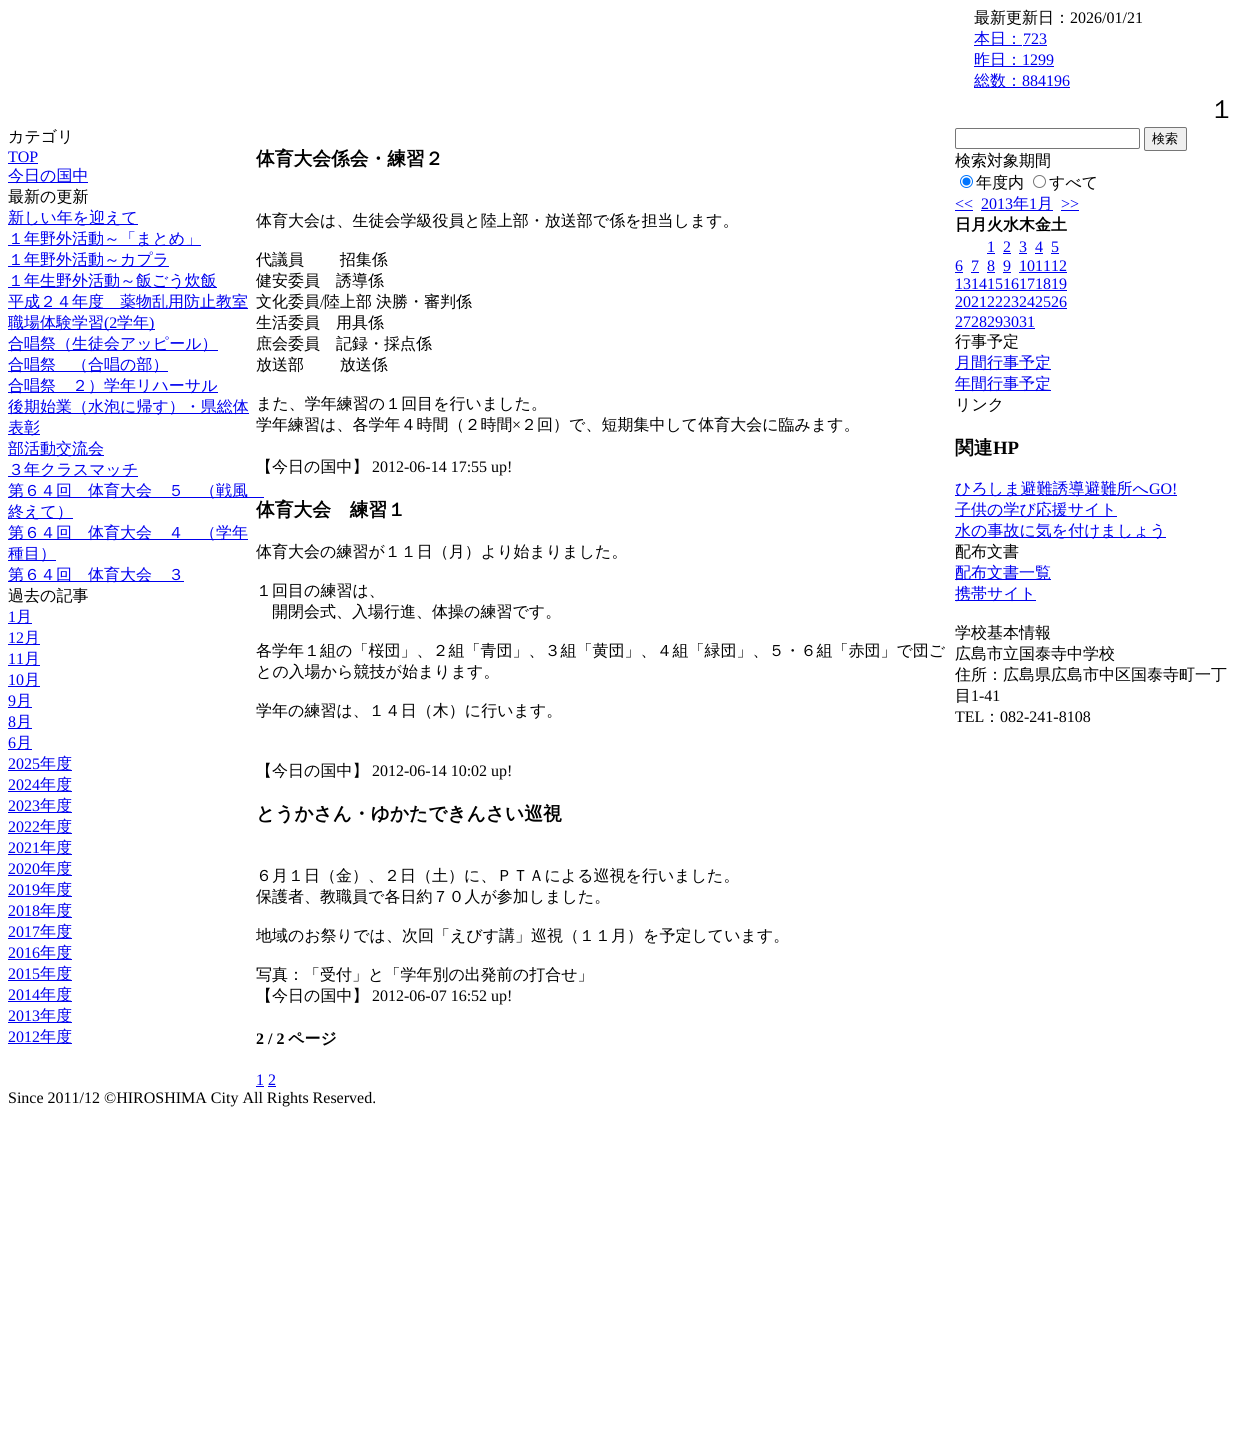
#include <cairo/cairo.h>
#include <math.h>
#include <stddef.h>


static void draw_spaced(cairo_t *cr, double x, double y, const char *s, double letter, double word) {
  cairo_move_to(cr, x, y);
  while (*s) {
    char ch[5] = {0};
    int n = 0;
    do ch[n++] = *s++; while ((*s & 0xC0) == 0x80);
    cairo_show_text(cr, ch);
    cairo_rel_move_to(cr, letter + word * (*ch == ' '), 0);
  }
}

static void rounded_rect(cairo_t *cr, double x, double y, double w, double h, double r) {
  cairo_new_sub_path(cr);
  cairo_arc(cr, x + w - r, y + h - r, r, 0, M_PI / 2);
  cairo_arc(cr, x + r, y + h - r, r, M_PI / 2, M_PI);
  cairo_arc(cr, x + r, y + r, r, M_PI, 1.5 * M_PI);
  cairo_arc(cr, x + w - r, y + r, r, 1.5 * M_PI, 2 * M_PI);
  cairo_close_path(cr);
}

static void draw(cairo_t *cr) {
  cairo_set_source_rgb(cr, 1, 1, 1);
  cairo_paint(cr);
  cairo_set_source_rgb(cr, 0, 0, 238 / 255.0);
  cairo_rectangle(cr, 974, 45, 48, 1);
  cairo_fill(cr);
  cairo_rectangle(cr, 1023, 45, 24, 1);
  cairo_fill(cr);
  cairo_rectangle(cr, 974, 66, 80, 1);
  cairo_fill(cr);
  cairo_rectangle(cr, 974, 87, 96, 1);
  cairo_fill(cr);
  cairo_rectangle(cr, 8, 163, 30, 1);
  cairo_fill(cr);
  cairo_rectangle(cr, 8, 182, 80, 1);
  cairo_fill(cr);
  cairo_rectangle(cr, 8, 224, 130, 1);
  cairo_fill(cr);
  cairo_rectangle(cr, 8, 245, 193, 1);
  cairo_fill(cr);
  cairo_rectangle(cr, 8, 266, 161, 1);
  cairo_fill(cr);
  cairo_rectangle(cr, 8, 287, 209, 1);
  cairo_fill(cr);
  cairo_rectangle(cr, 8, 308, 240, 1);
  cairo_fill(cr);
  cairo_rectangle(cr, 8, 329, 147, 1);
  cairo_fill(cr);
  cairo_rectangle(cr, 8, 350, 210, 1);
  cairo_fill(cr);
  cairo_rectangle(cr, 8, 371, 160, 1);
  cairo_fill(cr);
  cairo_rectangle(cr, 8, 392, 210, 1);
  cairo_fill(cr);
  cairo_rectangle(cr, 8, 413, 241, 1);
  cairo_fill(cr);
  cairo_rectangle(cr, 8, 434, 32, 1);
  cairo_fill(cr);
  cairo_rectangle(cr, 8, 455, 96, 1);
  cairo_fill(cr);
  cairo_rectangle(cr, 8, 476, 130, 1);
  cairo_fill(cr);
  cairo_rectangle(cr, 8, 497, 256, 1);
  cairo_fill(cr);
  cairo_rectangle(cr, 8, 518, 65, 1);
  cairo_fill(cr);
  cairo_rectangle(cr, 8, 539, 240, 1);
  cairo_fill(cr);
  cairo_rectangle(cr, 8, 560, 48, 1);
  cairo_fill(cr);
  cairo_rectangle(cr, 8, 581, 176, 1);
  cairo_fill(cr);
  cairo_rectangle(cr, 8, 623, 24, 1);
  cairo_fill(cr);
  cairo_rectangle(cr, 8, 644, 32, 1);
  cairo_fill(cr);
  cairo_rectangle(cr, 8, 665, 32, 1);
  cairo_fill(cr);
  cairo_rectangle(cr, 8, 686, 32, 1);
  cairo_fill(cr);
  cairo_rectangle(cr, 8, 707, 24, 1);
  cairo_fill(cr);
  cairo_rectangle(cr, 8, 728, 24, 1);
  cairo_fill(cr);
  cairo_rectangle(cr, 8, 749, 24, 1);
  cairo_fill(cr);
  cairo_rectangle(cr, 8, 770, 64, 1);
  cairo_fill(cr);
  cairo_rectangle(cr, 8, 791, 64, 1);
  cairo_fill(cr);
  cairo_rectangle(cr, 8, 812, 64, 1);
  cairo_fill(cr);
  cairo_rectangle(cr, 8, 833, 64, 1);
  cairo_fill(cr);
  cairo_rectangle(cr, 8, 854, 64, 1);
  cairo_fill(cr);
  cairo_rectangle(cr, 8, 875, 64, 1);
  cairo_fill(cr);
  cairo_rectangle(cr, 8, 896, 64, 1);
  cairo_fill(cr);
  cairo_rectangle(cr, 8, 917, 64, 1);
  cairo_fill(cr);
  cairo_rectangle(cr, 8, 938, 64, 1);
  cairo_fill(cr);
  cairo_rectangle(cr, 8, 959, 64, 1);
  cairo_fill(cr);
  cairo_rectangle(cr, 8, 980, 64, 1);
  cairo_fill(cr);
  cairo_rectangle(cr, 8, 1001, 64, 1);
  cairo_fill(cr);
  cairo_rectangle(cr, 8, 1022, 64, 1);
  cairo_fill(cr);
  cairo_rectangle(cr, 8, 1043, 64, 1);
  cairo_fill(cr);
  cairo_rectangle(cr, 256, 1086, 8, 1);
  cairo_fill(cr);
  cairo_rectangle(cr, 268, 1086, 8, 1);
  cairo_fill(cr);
  rounded_rect(cr, 955.5, 128.5, 184, 20, 1.5);
  cairo_set_source_rgb(cr, 118 / 255.0, 118 / 255.0, 118 / 255.0);
  cairo_set_line_width(cr, 1);
  cairo_stroke(cr);
  cairo_set_source_rgb(cr, 239 / 255.0, 239 / 255.0, 239 / 255.0);
  rounded_rect(cr, 1144.5, 127.5, 42, 23, 1.5);
  cairo_fill_preserve(cr);
  cairo_set_source_rgb(cr, 118 / 255.0, 118 / 255.0, 118 / 255.0);
  cairo_stroke(cr);
  cairo_arc(cr, 966.5, 181.5, 6, 0, 2 * M_PI);
  cairo_set_source_rgb(cr, 0, 117 / 255.0, 1);
  cairo_stroke(cr);
  cairo_arc(cr, 966.5, 181.5, 4, 0, 2 * M_PI);
  cairo_fill(cr);
  cairo_arc(cr, 1039.5, 181.5, 6, 0, 2 * M_PI);
  cairo_set_source_rgb(cr, 118 / 255.0, 118 / 255.0, 118 / 255.0);
  cairo_stroke(cr);
  cairo_set_source_rgb(cr, 0, 0, 238 / 255.0);
  cairo_rectangle(cr, 955, 210, 18, 1);
  cairo_fill(cr);
  cairo_rectangle(cr, 981, 210, 72, 1);
  cairo_fill(cr);
  cairo_rectangle(cr, 1061, 210, 18, 1);
  cairo_fill(cr);
  cairo_rectangle(cr, 987, 253, 8, 1);
  cairo_fill(cr);
  cairo_rectangle(cr, 1003, 253, 8, 1);
  cairo_fill(cr);
  cairo_rectangle(cr, 1019, 253, 8, 1);
  cairo_fill(cr);
  cairo_rectangle(cr, 1035, 253, 8, 1);
  cairo_fill(cr);
  cairo_rectangle(cr, 1051, 253, 8, 1);
  cairo_fill(cr);
  cairo_rectangle(cr, 955, 272, 8, 1);
  cairo_fill(cr);
  cairo_rectangle(cr, 971, 272, 8, 1);
  cairo_fill(cr);
  cairo_rectangle(cr, 987, 272, 8, 1);
  cairo_fill(cr);
  cairo_rectangle(cr, 1003, 272, 8, 1);
  cairo_fill(cr);
  cairo_rectangle(cr, 1019, 272, 48, 1);
  cairo_fill(cr);
  cairo_rectangle(cr, 955, 290, 112, 1);
  cairo_fill(cr);
  cairo_rectangle(cr, 955, 308, 112, 1);
  cairo_fill(cr);
  cairo_rectangle(cr, 955, 328, 80, 1);
  cairo_fill(cr);
  cairo_rectangle(cr, 955, 369, 96, 1);
  cairo_fill(cr);
  cairo_rectangle(cr, 955, 390, 96, 1);
  cairo_fill(cr);
  cairo_rectangle(cr, 955, 495, 222, 1);
  cairo_fill(cr);
  cairo_rectangle(cr, 955, 516, 162, 1);
  cairo_fill(cr);
  cairo_rectangle(cr, 955, 537, 211, 1);
  cairo_fill(cr);
  cairo_rectangle(cr, 955, 579, 96, 1);
  cairo_fill(cr);
  cairo_rectangle(cr, 955, 600, 81, 1);
  cairo_fill(cr);
  cairo_select_font_face(cr, "WenQuanYi Zen Hei Medium", CAIRO_FONT_SLANT_NORMAL, CAIRO_FONT_WEIGHT_NORMAL);
  cairo_set_font_size(cr, 16);
  cairo_set_source_rgb(cr, 0, 0, 0);
  cairo_move_to(cr, 974, 23);
  cairo_show_text(cr, "最新更新日：");
  cairo_select_font_face(cr, "Liberation Serif", CAIRO_FONT_SLANT_NORMAL, CAIRO_FONT_WEIGHT_NORMAL);
  cairo_move_to(cr, 1070, 23);
  cairo_show_text(cr, "2026/01/21");
  cairo_select_font_face(cr, "WenQuanYi Zen Hei Medium", CAIRO_FONT_SLANT_NORMAL, CAIRO_FONT_WEIGHT_NORMAL);
  cairo_set_source_rgb(cr, 0, 0, 238 / 255.0);
  cairo_move_to(cr, 974, 44);
  cairo_show_text(cr, "本日：");
  cairo_select_font_face(cr, "Liberation Serif", CAIRO_FONT_SLANT_NORMAL, CAIRO_FONT_WEIGHT_NORMAL);
  cairo_move_to(cr, 1023, 44);
  cairo_show_text(cr, "723");
  cairo_select_font_face(cr, "WenQuanYi Zen Hei Medium", CAIRO_FONT_SLANT_NORMAL, CAIRO_FONT_WEIGHT_NORMAL);
  cairo_move_to(cr, 974, 65);
  cairo_show_text(cr, "昨日：");
  cairo_select_font_face(cr, "Liberation Serif", CAIRO_FONT_SLANT_NORMAL, CAIRO_FONT_WEIGHT_NORMAL);
  cairo_move_to(cr, 1022, 65);
  cairo_show_text(cr, "1299");
  cairo_select_font_face(cr, "WenQuanYi Zen Hei Medium", CAIRO_FONT_SLANT_NORMAL, CAIRO_FONT_WEIGHT_NORMAL);
  cairo_move_to(cr, 974, 86);
  cairo_show_text(cr, "総数：");
  cairo_select_font_face(cr, "Liberation Serif", CAIRO_FONT_SLANT_NORMAL, CAIRO_FONT_WEIGHT_NORMAL);
  cairo_move_to(cr, 1022, 86);
  cairo_show_text(cr, "884196");
  cairo_select_font_face(cr, "WenQuanYi Zen Hei Medium", CAIRO_FONT_SLANT_NORMAL, CAIRO_FONT_WEIGHT_NORMAL);
  cairo_set_font_size(cr, 26);
  cairo_set_source_rgb(cr, 0, 0, 0);
  cairo_move_to(cr, 1209, 118);
  cairo_show_text(cr, "１");
  cairo_set_font_size(cr, 16);
  cairo_move_to(cr, 8, 142);
  cairo_show_text(cr, "カテゴリ");
  cairo_select_font_face(cr, "Liberation Serif", CAIRO_FONT_SLANT_NORMAL, CAIRO_FONT_WEIGHT_NORMAL);
  cairo_set_source_rgb(cr, 0, 0, 238 / 255.0);
  cairo_move_to(cr, 8, 162);
  cairo_show_text(cr, "TOP");
  cairo_select_font_face(cr, "WenQuanYi Zen Hei Medium", CAIRO_FONT_SLANT_NORMAL, CAIRO_FONT_WEIGHT_NORMAL);
  cairo_move_to(cr, 8, 181);
  cairo_show_text(cr, "今日の国中");
  cairo_set_source_rgb(cr, 0, 0, 0);
  cairo_move_to(cr, 8, 202);
  cairo_show_text(cr, "最新の更新");
  cairo_set_source_rgb(cr, 0, 0, 238 / 255.0);
  cairo_move_to(cr, 8, 223);
  cairo_show_text(cr, "新しい年を迎えて");
  cairo_move_to(cr, 8, 244);
  cairo_show_text(cr, "１年野外活動～「まとめ」");
  cairo_move_to(cr, 8, 265);
  cairo_show_text(cr, "１年野外活動～カプラ");
  cairo_move_to(cr, 8, 286);
  cairo_show_text(cr, "１年生野外活動～飯ごう炊飯");
  cairo_move_to(cr, 8, 307);
  cairo_show_text(cr, "平成２４年度　薬物乱用防止教室");
  cairo_move_to(cr, 8, 328);
  cairo_show_text(cr, "職場体験学習");
  cairo_select_font_face(cr, "Liberation Serif", CAIRO_FONT_SLANT_NORMAL, CAIRO_FONT_WEIGHT_NORMAL);
  cairo_move_to(cr, 104, 328);
  cairo_show_text(cr, "(2");
  cairo_select_font_face(cr, "WenQuanYi Zen Hei Medium", CAIRO_FONT_SLANT_NORMAL, CAIRO_FONT_WEIGHT_NORMAL);
  cairo_move_to(cr, 117, 328);
  cairo_show_text(cr, "学年");
  cairo_select_font_face(cr, "Liberation Serif", CAIRO_FONT_SLANT_NORMAL, CAIRO_FONT_WEIGHT_NORMAL);
  cairo_move_to(cr, 149, 328);
  cairo_show_text(cr, ")");
  cairo_select_font_face(cr, "WenQuanYi Zen Hei Medium", CAIRO_FONT_SLANT_NORMAL, CAIRO_FONT_WEIGHT_NORMAL);
  cairo_move_to(cr, 8, 349);
  cairo_show_text(cr, "合唱祭（生徒会アッピール）");
  cairo_move_to(cr, 8, 370);
  cairo_show_text(cr, "合唱祭　（合唱の部）");
  cairo_move_to(cr, 8, 391);
  cairo_show_text(cr, "合唱祭　２）学年リハーサル");
  cairo_move_to(cr, 8, 412);
  cairo_show_text(cr, "後期始業（水泡に帰す）・県総体");
  cairo_move_to(cr, 8, 433);
  cairo_show_text(cr, "表彰");
  cairo_move_to(cr, 8, 454);
  cairo_show_text(cr, "部活動交流会");
  cairo_move_to(cr, 8, 475);
  cairo_show_text(cr, "３年クラスマッチ");
  cairo_move_to(cr, 8, 496);
  cairo_show_text(cr, "第６４回　体育大会　５　（戦風");
  cairo_move_to(cr, 8, 517);
  cairo_show_text(cr, "終えて）");
  cairo_move_to(cr, 8, 538);
  cairo_show_text(cr, "第６４回　体育大会　４　（学年");
  cairo_move_to(cr, 8, 559);
  cairo_show_text(cr, "種目）");
  cairo_move_to(cr, 8, 580);
  cairo_show_text(cr, "第６４回　体育大会　３");
  cairo_set_source_rgb(cr, 0, 0, 0);
  cairo_move_to(cr, 8, 601);
  cairo_show_text(cr, "過去の記事");
  cairo_select_font_face(cr, "Liberation Serif", CAIRO_FONT_SLANT_NORMAL, CAIRO_FONT_WEIGHT_NORMAL);
  cairo_set_source_rgb(cr, 0, 0, 238 / 255.0);
  cairo_move_to(cr, 8, 622);
  cairo_show_text(cr, "1");
  cairo_select_font_face(cr, "WenQuanYi Zen Hei Medium", CAIRO_FONT_SLANT_NORMAL, CAIRO_FONT_WEIGHT_NORMAL);
  cairo_move_to(cr, 16, 622);
  cairo_show_text(cr, "月");
  cairo_select_font_face(cr, "Liberation Serif", CAIRO_FONT_SLANT_NORMAL, CAIRO_FONT_WEIGHT_NORMAL);
  cairo_move_to(cr, 8, 643);
  cairo_show_text(cr, "12");
  cairo_select_font_face(cr, "WenQuanYi Zen Hei Medium", CAIRO_FONT_SLANT_NORMAL, CAIRO_FONT_WEIGHT_NORMAL);
  cairo_move_to(cr, 24, 643);
  cairo_show_text(cr, "月");
  cairo_select_font_face(cr, "Liberation Serif", CAIRO_FONT_SLANT_NORMAL, CAIRO_FONT_WEIGHT_NORMAL);
  cairo_move_to(cr, 8, 664);
  cairo_show_text(cr, "11");
  cairo_select_font_face(cr, "WenQuanYi Zen Hei Medium", CAIRO_FONT_SLANT_NORMAL, CAIRO_FONT_WEIGHT_NORMAL);
  cairo_move_to(cr, 24, 664);
  cairo_show_text(cr, "月");
  cairo_select_font_face(cr, "Liberation Serif", CAIRO_FONT_SLANT_NORMAL, CAIRO_FONT_WEIGHT_NORMAL);
  cairo_move_to(cr, 8, 685);
  cairo_show_text(cr, "10");
  cairo_select_font_face(cr, "WenQuanYi Zen Hei Medium", CAIRO_FONT_SLANT_NORMAL, CAIRO_FONT_WEIGHT_NORMAL);
  cairo_move_to(cr, 24, 685);
  cairo_show_text(cr, "月");
  cairo_select_font_face(cr, "Liberation Serif", CAIRO_FONT_SLANT_NORMAL, CAIRO_FONT_WEIGHT_NORMAL);
  cairo_move_to(cr, 8, 706);
  cairo_show_text(cr, "9");
  cairo_select_font_face(cr, "WenQuanYi Zen Hei Medium", CAIRO_FONT_SLANT_NORMAL, CAIRO_FONT_WEIGHT_NORMAL);
  cairo_move_to(cr, 16, 706);
  cairo_show_text(cr, "月");
  cairo_select_font_face(cr, "Liberation Serif", CAIRO_FONT_SLANT_NORMAL, CAIRO_FONT_WEIGHT_NORMAL);
  cairo_move_to(cr, 8, 727);
  cairo_show_text(cr, "8");
  cairo_select_font_face(cr, "WenQuanYi Zen Hei Medium", CAIRO_FONT_SLANT_NORMAL, CAIRO_FONT_WEIGHT_NORMAL);
  cairo_move_to(cr, 16, 727);
  cairo_show_text(cr, "月");
  cairo_select_font_face(cr, "Liberation Serif", CAIRO_FONT_SLANT_NORMAL, CAIRO_FONT_WEIGHT_NORMAL);
  cairo_move_to(cr, 8, 748);
  cairo_show_text(cr, "6");
  cairo_select_font_face(cr, "WenQuanYi Zen Hei Medium", CAIRO_FONT_SLANT_NORMAL, CAIRO_FONT_WEIGHT_NORMAL);
  cairo_move_to(cr, 16, 748);
  cairo_show_text(cr, "月");
  cairo_select_font_face(cr, "Liberation Serif", CAIRO_FONT_SLANT_NORMAL, CAIRO_FONT_WEIGHT_NORMAL);
  cairo_move_to(cr, 8, 769);
  cairo_show_text(cr, "2025");
  cairo_select_font_face(cr, "WenQuanYi Zen Hei Medium", CAIRO_FONT_SLANT_NORMAL, CAIRO_FONT_WEIGHT_NORMAL);
  cairo_move_to(cr, 40, 769);
  cairo_show_text(cr, "年度");
  cairo_select_font_face(cr, "Liberation Serif", CAIRO_FONT_SLANT_NORMAL, CAIRO_FONT_WEIGHT_NORMAL);
  cairo_move_to(cr, 8, 790);
  cairo_show_text(cr, "2024");
  cairo_select_font_face(cr, "WenQuanYi Zen Hei Medium", CAIRO_FONT_SLANT_NORMAL, CAIRO_FONT_WEIGHT_NORMAL);
  cairo_move_to(cr, 40, 790);
  cairo_show_text(cr, "年度");
  cairo_select_font_face(cr, "Liberation Serif", CAIRO_FONT_SLANT_NORMAL, CAIRO_FONT_WEIGHT_NORMAL);
  cairo_move_to(cr, 8, 811);
  cairo_show_text(cr, "2023");
  cairo_select_font_face(cr, "WenQuanYi Zen Hei Medium", CAIRO_FONT_SLANT_NORMAL, CAIRO_FONT_WEIGHT_NORMAL);
  cairo_move_to(cr, 40, 811);
  cairo_show_text(cr, "年度");
  cairo_select_font_face(cr, "Liberation Serif", CAIRO_FONT_SLANT_NORMAL, CAIRO_FONT_WEIGHT_NORMAL);
  cairo_move_to(cr, 8, 832);
  cairo_show_text(cr, "2022");
  cairo_select_font_face(cr, "WenQuanYi Zen Hei Medium", CAIRO_FONT_SLANT_NORMAL, CAIRO_FONT_WEIGHT_NORMAL);
  cairo_move_to(cr, 40, 832);
  cairo_show_text(cr, "年度");
  cairo_select_font_face(cr, "Liberation Serif", CAIRO_FONT_SLANT_NORMAL, CAIRO_FONT_WEIGHT_NORMAL);
  cairo_move_to(cr, 8, 853);
  cairo_show_text(cr, "2021");
  cairo_select_font_face(cr, "WenQuanYi Zen Hei Medium", CAIRO_FONT_SLANT_NORMAL, CAIRO_FONT_WEIGHT_NORMAL);
  cairo_move_to(cr, 40, 853);
  cairo_show_text(cr, "年度");
  cairo_select_font_face(cr, "Liberation Serif", CAIRO_FONT_SLANT_NORMAL, CAIRO_FONT_WEIGHT_NORMAL);
  cairo_move_to(cr, 8, 874);
  cairo_show_text(cr, "2020");
  cairo_select_font_face(cr, "WenQuanYi Zen Hei Medium", CAIRO_FONT_SLANT_NORMAL, CAIRO_FONT_WEIGHT_NORMAL);
  cairo_move_to(cr, 40, 874);
  cairo_show_text(cr, "年度");
  cairo_select_font_face(cr, "Liberation Serif", CAIRO_FONT_SLANT_NORMAL, CAIRO_FONT_WEIGHT_NORMAL);
  cairo_move_to(cr, 8, 895);
  cairo_show_text(cr, "2019");
  cairo_select_font_face(cr, "WenQuanYi Zen Hei Medium", CAIRO_FONT_SLANT_NORMAL, CAIRO_FONT_WEIGHT_NORMAL);
  cairo_move_to(cr, 40, 895);
  cairo_show_text(cr, "年度");
  cairo_select_font_face(cr, "Liberation Serif", CAIRO_FONT_SLANT_NORMAL, CAIRO_FONT_WEIGHT_NORMAL);
  cairo_move_to(cr, 8, 916);
  cairo_show_text(cr, "2018");
  cairo_select_font_face(cr, "WenQuanYi Zen Hei Medium", CAIRO_FONT_SLANT_NORMAL, CAIRO_FONT_WEIGHT_NORMAL);
  cairo_move_to(cr, 40, 916);
  cairo_show_text(cr, "年度");
  cairo_select_font_face(cr, "Liberation Serif", CAIRO_FONT_SLANT_NORMAL, CAIRO_FONT_WEIGHT_NORMAL);
  cairo_move_to(cr, 8, 937);
  cairo_show_text(cr, "2017");
  cairo_select_font_face(cr, "WenQuanYi Zen Hei Medium", CAIRO_FONT_SLANT_NORMAL, CAIRO_FONT_WEIGHT_NORMAL);
  cairo_move_to(cr, 40, 937);
  cairo_show_text(cr, "年度");
  cairo_select_font_face(cr, "Liberation Serif", CAIRO_FONT_SLANT_NORMAL, CAIRO_FONT_WEIGHT_NORMAL);
  cairo_move_to(cr, 8, 958);
  cairo_show_text(cr, "2016");
  cairo_select_font_face(cr, "WenQuanYi Zen Hei Medium", CAIRO_FONT_SLANT_NORMAL, CAIRO_FONT_WEIGHT_NORMAL);
  cairo_move_to(cr, 40, 958);
  cairo_show_text(cr, "年度");
  cairo_select_font_face(cr, "Liberation Serif", CAIRO_FONT_SLANT_NORMAL, CAIRO_FONT_WEIGHT_NORMAL);
  cairo_move_to(cr, 8, 979);
  cairo_show_text(cr, "2015");
  cairo_select_font_face(cr, "WenQuanYi Zen Hei Medium", CAIRO_FONT_SLANT_NORMAL, CAIRO_FONT_WEIGHT_NORMAL);
  cairo_move_to(cr, 40, 979);
  cairo_show_text(cr, "年度");
  cairo_select_font_face(cr, "Liberation Serif", CAIRO_FONT_SLANT_NORMAL, CAIRO_FONT_WEIGHT_NORMAL);
  cairo_move_to(cr, 8, 1000);
  cairo_show_text(cr, "2014");
  cairo_select_font_face(cr, "WenQuanYi Zen Hei Medium", CAIRO_FONT_SLANT_NORMAL, CAIRO_FONT_WEIGHT_NORMAL);
  cairo_move_to(cr, 40, 1000);
  cairo_show_text(cr, "年度");
  cairo_select_font_face(cr, "Liberation Serif", CAIRO_FONT_SLANT_NORMAL, CAIRO_FONT_WEIGHT_NORMAL);
  cairo_move_to(cr, 8, 1021);
  cairo_show_text(cr, "2013");
  cairo_select_font_face(cr, "WenQuanYi Zen Hei Medium", CAIRO_FONT_SLANT_NORMAL, CAIRO_FONT_WEIGHT_NORMAL);
  cairo_move_to(cr, 40, 1021);
  cairo_show_text(cr, "年度");
  cairo_select_font_face(cr, "Liberation Serif", CAIRO_FONT_SLANT_NORMAL, CAIRO_FONT_WEIGHT_NORMAL);
  cairo_move_to(cr, 8, 1042);
  cairo_show_text(cr, "2012");
  cairo_select_font_face(cr, "WenQuanYi Zen Hei Medium", CAIRO_FONT_SLANT_NORMAL, CAIRO_FONT_WEIGHT_NORMAL);
  cairo_move_to(cr, 40, 1042);
  cairo_show_text(cr, "年度");
  cairo_select_font_face(cr, "WenQuanYi Zen Hei", CAIRO_FONT_SLANT_NORMAL, CAIRO_FONT_WEIGHT_BOLD);
  cairo_set_font_size(cr, 18.75);
  cairo_set_source_rgb(cr, 0, 0, 0);
  cairo_move_to(cr, 256, 165);
  cairo_show_text(cr, "体育大会係会・練習２");
  cairo_select_font_face(cr, "WenQuanYi Zen Hei Medium", CAIRO_FONT_SLANT_NORMAL, CAIRO_FONT_WEIGHT_NORMAL);
  cairo_set_font_size(cr, 16);
  cairo_move_to(cr, 256, 226);
  cairo_show_text(cr, "体育大会は、生徒会学級役員と陸上部・放送部で係を担当します。");
  draw_spaced(cr, 256, 265, "代議員　　 招集係", 0, -1);
  cairo_move_to(cr, 256, 286);
  cairo_show_text(cr, "健安委員　誘導係");
  cairo_move_to(cr, 256, 307);
  cairo_show_text(cr, "文化委員");
  cairo_select_font_face(cr, "Liberation Serif", CAIRO_FONT_SLANT_NORMAL, CAIRO_FONT_WEIGHT_NORMAL);
  cairo_move_to(cr, 320, 307);
  cairo_show_text(cr, "/");
  cairo_select_font_face(cr, "WenQuanYi Zen Hei Medium", CAIRO_FONT_SLANT_NORMAL, CAIRO_FONT_WEIGHT_NORMAL);
  cairo_move_to(cr, 324, 307);
  cairo_show_text(cr, "陸上部");
  cairo_move_to(cr, 376, 307);
  cairo_show_text(cr, "決勝・審判係");
  cairo_move_to(cr, 256, 328);
  cairo_show_text(cr, "生活委員　用具係");
  cairo_move_to(cr, 256, 349);
  cairo_show_text(cr, "庶会委員　記録・採点係");
  draw_spaced(cr, 256, 370, "放送部　 　放送係", 0, -1);
  cairo_move_to(cr, 256, 409);
  cairo_show_text(cr, "また、学年練習の１回目を行いました。");
  cairo_move_to(cr, 256, 430);
  cairo_show_text(cr, "学年練習は、各学年４時間（２時間");
  cairo_select_font_face(cr, "Liberation Serif", CAIRO_FONT_SLANT_NORMAL, CAIRO_FONT_WEIGHT_NORMAL);
  cairo_move_to(cr, 512, 430);
  cairo_show_text(cr, "×");
  cairo_select_font_face(cr, "WenQuanYi Zen Hei Medium", CAIRO_FONT_SLANT_NORMAL, CAIRO_FONT_WEIGHT_NORMAL);
  cairo_move_to(cr, 521, 430);
  cairo_show_text(cr, "２回）で、短期集中して体育大会に臨みます。");
  cairo_move_to(cr, 256, 472);
  cairo_show_text(cr, "【今日の国中】");
  cairo_select_font_face(cr, "Liberation Serif", CAIRO_FONT_SLANT_NORMAL, CAIRO_FONT_WEIGHT_NORMAL);
  cairo_move_to(cr, 372, 472);
  cairo_show_text(cr, "2012-06-14 17:55 up!");
  cairo_select_font_face(cr, "WenQuanYi Zen Hei", CAIRO_FONT_SLANT_NORMAL, CAIRO_FONT_WEIGHT_BOLD);
  cairo_set_font_size(cr, 18.75);
  cairo_move_to(cr, 256, 516);
  cairo_show_text(cr, "体育大会　練習１");
  cairo_select_font_face(cr, "WenQuanYi Zen Hei Medium", CAIRO_FONT_SLANT_NORMAL, CAIRO_FONT_WEIGHT_NORMAL);
  cairo_set_font_size(cr, 16);
  cairo_move_to(cr, 256, 557);
  cairo_show_text(cr, "体育大会の練習が１１日（月）より始まりました。");
  cairo_move_to(cr, 256, 596);
  cairo_show_text(cr, "１回目の練習は、");
  cairo_move_to(cr, 272, 617);
  cairo_show_text(cr, "開閉会式、入場行進、体操の練習です。");
  cairo_move_to(cr, 256, 656);
  cairo_show_text(cr, "各学年１組の「桜団」、２組「青団」、３組「黄団」、４組「緑団」、５・６組「赤団」で団ご");
  cairo_move_to(cr, 256, 677);
  cairo_show_text(cr, "との入場から競技が始まります。");
  cairo_move_to(cr, 256, 716);
  cairo_show_text(cr, "学年の練習は、１４日（木）に行います。");
  cairo_move_to(cr, 256, 776);
  cairo_show_text(cr, "【今日の国中】");
  cairo_select_font_face(cr, "Liberation Serif", CAIRO_FONT_SLANT_NORMAL, CAIRO_FONT_WEIGHT_NORMAL);
  cairo_move_to(cr, 372, 776);
  cairo_show_text(cr, "2012-06-14 10:02 up!");
  cairo_select_font_face(cr, "WenQuanYi Zen Hei", CAIRO_FONT_SLANT_NORMAL, CAIRO_FONT_WEIGHT_BOLD);
  cairo_set_font_size(cr, 18.75);
  cairo_move_to(cr, 256, 820);
  cairo_show_text(cr, "とうかさん・ゆかたできんさい巡視");
  cairo_select_font_face(cr, "WenQuanYi Zen Hei Medium", CAIRO_FONT_SLANT_NORMAL, CAIRO_FONT_WEIGHT_NORMAL);
  cairo_set_font_size(cr, 16);
  cairo_move_to(cr, 256, 881);
  cairo_show_text(cr, "６月１日（金）、２日（土）に、ＰＴＡによる巡視を行いました。");
  cairo_move_to(cr, 256, 902);
  cairo_show_text(cr, "保護者、教職員で各日約７０人が参加しました。");
  cairo_move_to(cr, 256, 941);
  cairo_show_text(cr, "地域のお祭りでは、次回「えびす講」巡視（１１月）を予定しています。");
  cairo_move_to(cr, 256, 980);
  cairo_show_text(cr, "写真：「受付」と「学年別の出発前の打合せ」");
  cairo_move_to(cr, 256, 1001);
  cairo_show_text(cr, "【今日の国中】");
  cairo_select_font_face(cr, "Liberation Serif", CAIRO_FONT_SLANT_NORMAL, CAIRO_FONT_WEIGHT_NORMAL);
  cairo_move_to(cr, 372, 1001);
  cairo_show_text(cr, "2012-06-07 16:52 up!");
  cairo_select_font_face(cr, "Liberation Serif", CAIRO_FONT_SLANT_NORMAL, CAIRO_FONT_WEIGHT_BOLD);
  cairo_move_to(cr, 256, 1044);
  cairo_show_text(cr, "2 / 2");
  cairo_select_font_face(cr, "WenQuanYi Zen Hei", CAIRO_FONT_SLANT_NORMAL, CAIRO_FONT_WEIGHT_BOLD);
  cairo_move_to(cr, 288, 1044);
  cairo_show_text(cr, "ページ");
  cairo_select_font_face(cr, "Liberation Serif", CAIRO_FONT_SLANT_NORMAL, CAIRO_FONT_WEIGHT_NORMAL);
  cairo_set_source_rgb(cr, 0, 0, 238 / 255.0);
  cairo_move_to(cr, 256, 1085);
  cairo_show_text(cr, "1 2");
  cairo_select_font_face(cr, "WenQuanYi Zen Hei Medium", CAIRO_FONT_SLANT_NORMAL, CAIRO_FONT_WEIGHT_NORMAL);
  cairo_set_font_size(cr, 13);
  cairo_set_source_rgb(cr, 0, 0, 0);
  cairo_move_to(cr, 1152, 143);
  cairo_show_text(cr, "検索");
  cairo_set_font_size(cr, 16);
  cairo_move_to(cr, 955, 166);
  cairo_show_text(cr, "検索対象期間");
  cairo_move_to(cr, 976, 188);
  cairo_show_text(cr, "年度内");
  cairo_move_to(cr, 1049, 188);
  cairo_show_text(cr, "すべて");
  cairo_select_font_face(cr, "Liberation Serif", CAIRO_FONT_SLANT_NORMAL, CAIRO_FONT_WEIGHT_NORMAL);
  cairo_set_source_rgb(cr, 0, 0, 238 / 255.0);
  cairo_move_to(cr, 955, 209);
  cairo_show_text(cr, "<<");
  cairo_move_to(cr, 981, 209);
  cairo_show_text(cr, "2013");
  cairo_select_font_face(cr, "WenQuanYi Zen Hei Medium", CAIRO_FONT_SLANT_NORMAL, CAIRO_FONT_WEIGHT_NORMAL);
  cairo_move_to(cr, 1013, 209);
  cairo_show_text(cr, "年");
  cairo_select_font_face(cr, "Liberation Serif", CAIRO_FONT_SLANT_NORMAL, CAIRO_FONT_WEIGHT_NORMAL);
  cairo_move_to(cr, 1029, 209);
  cairo_show_text(cr, "1");
  cairo_select_font_face(cr, "WenQuanYi Zen Hei Medium", CAIRO_FONT_SLANT_NORMAL, CAIRO_FONT_WEIGHT_NORMAL);
  cairo_move_to(cr, 1037, 209);
  cairo_show_text(cr, "月");
  cairo_select_font_face(cr, "Liberation Serif", CAIRO_FONT_SLANT_NORMAL, CAIRO_FONT_WEIGHT_NORMAL);
  cairo_move_to(cr, 1061, 209);
  cairo_show_text(cr, ">>");
  cairo_select_font_face(cr, "WenQuanYi Zen Hei", CAIRO_FONT_SLANT_NORMAL, CAIRO_FONT_WEIGHT_BOLD);
  cairo_set_source_rgb(cr, 0, 0, 0);
  cairo_move_to(cr, 955, 230);
  cairo_show_text(cr, "日月火水木金土");
  cairo_select_font_face(cr, "Liberation Serif", CAIRO_FONT_SLANT_NORMAL, CAIRO_FONT_WEIGHT_NORMAL);
  cairo_set_source_rgb(cr, 0, 0, 238 / 255.0);
  cairo_move_to(cr, 987, 252);
  cairo_show_text(cr, "1");
  cairo_move_to(cr, 1003, 252);
  cairo_show_text(cr, "2");
  cairo_move_to(cr, 1019, 252);
  cairo_show_text(cr, "3");
  cairo_move_to(cr, 1035, 252);
  cairo_show_text(cr, "4");
  cairo_move_to(cr, 1051, 252);
  cairo_show_text(cr, "5");
  cairo_move_to(cr, 955, 271);
  cairo_show_text(cr, "6");
  cairo_move_to(cr, 971, 271);
  cairo_show_text(cr, "7");
  cairo_move_to(cr, 987, 271);
  cairo_show_text(cr, "8");
  cairo_move_to(cr, 1003, 271);
  cairo_show_text(cr, "9");
  cairo_move_to(cr, 1019, 271);
  cairo_show_text(cr, "101112");
  cairo_move_to(cr, 955, 289);
  cairo_show_text(cr, "13141516171819");
  cairo_move_to(cr, 955, 307);
  cairo_show_text(cr, "20212223242526");
  cairo_move_to(cr, 955, 327);
  cairo_show_text(cr, "2728293031");
  cairo_select_font_face(cr, "WenQuanYi Zen Hei Medium", CAIRO_FONT_SLANT_NORMAL, CAIRO_FONT_WEIGHT_NORMAL);
  cairo_set_source_rgb(cr, 0, 0, 0);
  cairo_move_to(cr, 955, 347);
  cairo_show_text(cr, "行事予定");
  cairo_set_source_rgb(cr, 0, 0, 238 / 255.0);
  cairo_move_to(cr, 955, 368);
  cairo_show_text(cr, "月間行事予定");
  cairo_move_to(cr, 955, 389);
  cairo_show_text(cr, "年間行事予定");
  cairo_set_source_rgb(cr, 0, 0, 0);
  cairo_move_to(cr, 955, 410);
  cairo_show_text(cr, "リンク");
  cairo_select_font_face(cr, "WenQuanYi Zen Hei", CAIRO_FONT_SLANT_NORMAL, CAIRO_FONT_WEIGHT_BOLD);
  cairo_set_font_size(cr, 18.75);
  cairo_move_to(cr, 955, 454);
  cairo_show_text(cr, "関連");
  cairo_select_font_face(cr, "Liberation Serif", CAIRO_FONT_SLANT_NORMAL, CAIRO_FONT_WEIGHT_BOLD);
  cairo_move_to(cr, 993, 454);
  cairo_show_text(cr, "HP");
  cairo_select_font_face(cr, "WenQuanYi Zen Hei Medium", CAIRO_FONT_SLANT_NORMAL, CAIRO_FONT_WEIGHT_NORMAL);
  cairo_set_font_size(cr, 16);
  cairo_set_source_rgb(cr, 0, 0, 238 / 255.0);
  cairo_move_to(cr, 955, 494);
  cairo_show_text(cr, "ひろしま避難誘導避難所へ");
  cairo_select_font_face(cr, "Liberation Serif", CAIRO_FONT_SLANT_NORMAL, CAIRO_FONT_WEIGHT_NORMAL);
  cairo_move_to(cr, 1149, 494);
  cairo_show_text(cr, "GO!");
  cairo_select_font_face(cr, "WenQuanYi Zen Hei Medium", CAIRO_FONT_SLANT_NORMAL, CAIRO_FONT_WEIGHT_NORMAL);
  cairo_move_to(cr, 955, 515);
  cairo_show_text(cr, "子供の学び応援サイト");
  cairo_move_to(cr, 955, 536);
  cairo_show_text(cr, "水の事故に気を付けましょう");
  cairo_set_source_rgb(cr, 0, 0, 0);
  cairo_move_to(cr, 955, 557);
  cairo_show_text(cr, "配布文書");
  cairo_set_source_rgb(cr, 0, 0, 238 / 255.0);
  cairo_move_to(cr, 955, 578);
  cairo_show_text(cr, "配布文書一覧");
  cairo_move_to(cr, 955, 599);
  cairo_show_text(cr, "携帯サイト");
  cairo_set_source_rgb(cr, 0, 0, 0);
  cairo_move_to(cr, 955, 638);
  cairo_show_text(cr, "学校基本情報");
  cairo_move_to(cr, 955, 659);
  cairo_show_text(cr, "広島市立国泰寺中学校");
  cairo_move_to(cr, 955, 680);
  cairo_show_text(cr, "住所：広島県広島市中区国泰寺町一丁");
  cairo_move_to(cr, 955, 701);
  cairo_show_text(cr, "目");
  cairo_select_font_face(cr, "Liberation Serif", CAIRO_FONT_SLANT_NORMAL, CAIRO_FONT_WEIGHT_NORMAL);
  cairo_move_to(cr, 971, 701);
  cairo_show_text(cr, "1-41");
  cairo_move_to(cr, 955, 722);
  cairo_show_text(cr, "TEL");
  cairo_select_font_face(cr, "WenQuanYi Zen Hei Medium", CAIRO_FONT_SLANT_NORMAL, CAIRO_FONT_WEIGHT_NORMAL);
  cairo_move_to(cr, 984, 722);
  cairo_show_text(cr, "：");
  cairo_select_font_face(cr, "Liberation Serif", CAIRO_FONT_SLANT_NORMAL, CAIRO_FONT_WEIGHT_NORMAL);
  cairo_move_to(cr, 1000, 722);
  cairo_show_text(cr, "082-241-8108");
  cairo_move_to(cr, 8, 1103);
  cairo_show_text(cr, "Since 2011/12 ©HIROSHIMA City All Rights Reserved.");
}

int main(void) {
  cairo_surface_t *surface = cairo_image_surface_create(CAIRO_FORMAT_RGB24, 1245, 1453);
  cairo_t *cr = cairo_create(surface);
  cairo_font_options_t *options = cairo_font_options_create();
  cairo_font_options_set_hint_metrics(options, CAIRO_HINT_METRICS_OFF);
  cairo_font_options_set_hint_style(options, CAIRO_HINT_STYLE_NONE);
  cairo_set_font_options(cr, options);
  cairo_set_miter_limit(cr, 4);
  draw(cr);
  cairo_surface_write_to_png(surface, "out.png");
  cairo_font_options_destroy(options);
  cairo_destroy(cr);
  cairo_surface_destroy(surface);
  return 0;
}
